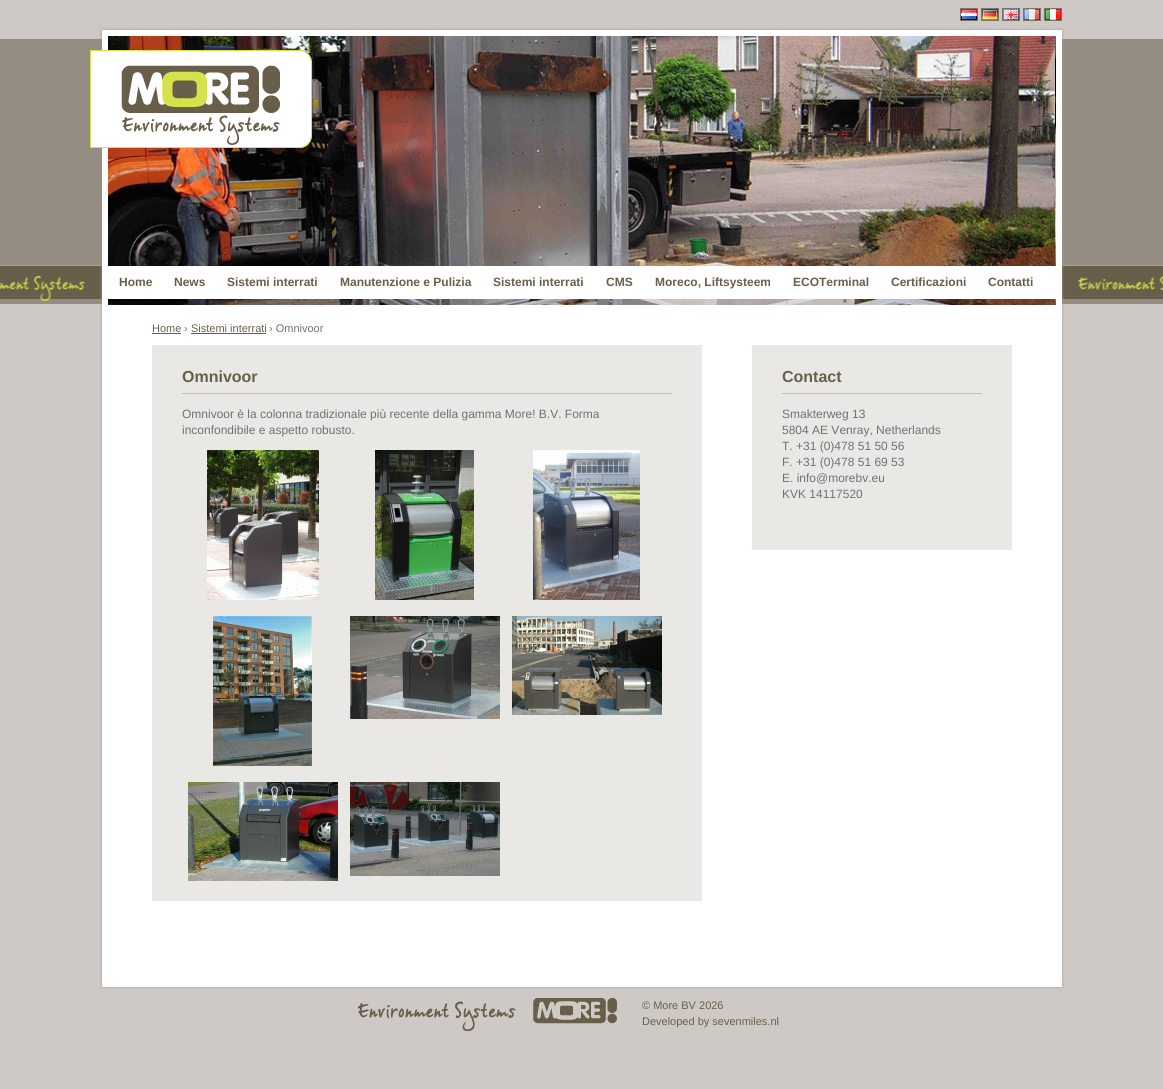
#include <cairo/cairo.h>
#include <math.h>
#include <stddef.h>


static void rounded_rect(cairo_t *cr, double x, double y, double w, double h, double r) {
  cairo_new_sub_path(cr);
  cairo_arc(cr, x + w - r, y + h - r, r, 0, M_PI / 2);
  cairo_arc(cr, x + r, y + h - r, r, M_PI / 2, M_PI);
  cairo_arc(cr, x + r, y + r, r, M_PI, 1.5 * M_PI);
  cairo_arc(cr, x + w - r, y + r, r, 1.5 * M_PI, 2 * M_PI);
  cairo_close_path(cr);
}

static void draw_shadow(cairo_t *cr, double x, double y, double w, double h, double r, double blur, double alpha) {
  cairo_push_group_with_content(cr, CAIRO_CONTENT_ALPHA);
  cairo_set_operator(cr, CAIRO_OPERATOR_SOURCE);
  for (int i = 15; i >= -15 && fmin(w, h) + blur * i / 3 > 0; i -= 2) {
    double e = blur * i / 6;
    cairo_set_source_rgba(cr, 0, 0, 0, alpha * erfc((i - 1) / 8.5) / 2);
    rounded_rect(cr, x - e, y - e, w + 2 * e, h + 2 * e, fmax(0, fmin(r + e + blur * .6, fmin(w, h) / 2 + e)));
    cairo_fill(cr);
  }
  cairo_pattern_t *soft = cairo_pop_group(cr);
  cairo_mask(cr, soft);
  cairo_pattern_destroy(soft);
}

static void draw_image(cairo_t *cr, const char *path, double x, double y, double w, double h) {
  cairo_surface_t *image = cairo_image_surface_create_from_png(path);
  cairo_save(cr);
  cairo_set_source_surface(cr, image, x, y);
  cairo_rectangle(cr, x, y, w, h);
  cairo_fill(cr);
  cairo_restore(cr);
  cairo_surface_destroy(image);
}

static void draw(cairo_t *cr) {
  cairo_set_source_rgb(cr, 206 / 255.0, 201 / 255.0, 197 / 255.0);
  cairo_paint(cr);
  draw_image(cr, "images/1.png", 0, 39, 1163, 265);
  draw_image(cr, "images/2.png", 0, 276, 1163, 25);
  cairo_rectangle(cr, 960.5, 8.5, 17, 12);
  cairo_set_source_rgb(cr, 126 / 255.0, 117 / 255.0, 106 / 255.0);
  cairo_set_line_width(cr, 1);
  cairo_stroke(cr);
  draw_image(cr, "images/3.png", 961, 9, 16, 11);
  cairo_rectangle(cr, 981.5, 8.5, 17, 12);
  cairo_stroke(cr);
  draw_image(cr, "images/4.png", 982, 9, 16, 11);
  cairo_rectangle(cr, 1002.5, 8.5, 17, 12);
  cairo_stroke(cr);
  draw_image(cr, "images/5.png", 1003, 9, 16, 11);
  cairo_rectangle(cr, 1023.5, 8.5, 17, 12);
  cairo_stroke(cr);
  draw_image(cr, "images/6.png", 1024, 9, 16, 11);
  cairo_rectangle(cr, 1044.5, 8.5, 17, 12);
  cairo_stroke(cr);
  draw_image(cr, "images/7.png", 1045, 9, 16, 11);
  cairo_set_source_rgb(cr, 153 / 255.0, 153 / 255.0, 153 / 255.0);
  draw_shadow(cr, 102, 30, 960, 957, 0, 1.5, 1);
  cairo_set_source_rgb(cr, 1, 1, 1);
  cairo_rectangle(cr, 102, 30, 960, 957);
  cairo_fill(cr);
  draw_image(cr, "images/8.png", 108, 36, 948, 269);
  draw_image(cr, "images/9.png", 90, 50, 222, 98);
  cairo_rectangle(cr, 108, 266, 948, 33);
  cairo_fill(cr);
  cairo_set_source_rgb(cr, 105 / 255.0, 94 / 255.0, 74 / 255.0);
  cairo_rectangle(cr, 152, 333, 29, 1);
  cairo_fill(cr);
  cairo_rectangle(cr, 191, 333, 75, 1);
  cairo_fill(cr);
  cairo_set_source_rgb(cr, 233 / 255.0, 232 / 255.0, 228 / 255.0);
  cairo_rectangle(cr, 152, 345, 550, 556);
  cairo_fill(cr);
  cairo_set_source_rgb(cr, 192 / 255.0, 191 / 255.0, 189 / 255.0);
  cairo_rectangle(cr, 182, 393, 490, 1);
  cairo_fill(cr);
  draw_image(cr, "images/10.png", 207, 450, 112, 150);
  draw_image(cr, "images/11.png", 375, 450, 99, 150);
  draw_image(cr, "images/12.png", 533, 450, 107, 150);
  draw_image(cr, "images/13.png", 213, 616, 99, 150);
  draw_image(cr, "images/14.png", 350, 616, 150, 103);
  draw_image(cr, "images/15.png", 512, 616, 150, 99);
  draw_image(cr, "images/16.png", 188, 782, 150, 99);
  draw_image(cr, "images/17.png", 350, 782, 150, 94);
  cairo_set_source_rgb(cr, 233 / 255.0, 232 / 255.0, 228 / 255.0);
  cairo_rectangle(cr, 752, 345, 260, 205);
  cairo_fill(cr);
  cairo_set_source_rgb(cr, 192 / 255.0, 191 / 255.0, 189 / 255.0);
  cairo_rectangle(cr, 782, 393, 200, 1);
  cairo_fill(cr);
  draw_image(cr, "images/18.png", 358, 998, 259, 33);
  cairo_select_font_face(cr, "Liberation Sans", CAIRO_FONT_SLANT_NORMAL, CAIRO_FONT_WEIGHT_BOLD);
  cairo_set_font_size(cr, 12);
  cairo_set_source_rgb(cr, 105 / 255.0, 94 / 255.0, 74 / 255.0);
  cairo_move_to(cr, 119, 286);
  cairo_show_text(cr, "Home");
  cairo_move_to(cr, 174, 286);
  cairo_show_text(cr, "News");
  cairo_move_to(cr, 227, 286);
  cairo_show_text(cr, "Sistemi interrati");
  cairo_move_to(cr, 340, 286);
  cairo_show_text(cr, "Manutenzione e Pulizia");
  cairo_move_to(cr, 493, 286);
  cairo_show_text(cr, "Sistemi interrati");
  cairo_move_to(cr, 606, 286);
  cairo_show_text(cr, "CMS");
  cairo_move_to(cr, 655, 286);
  cairo_show_text(cr, "Moreco, Liftsysteem");
  cairo_move_to(cr, 793, 286);
  cairo_show_text(cr, "ECOTerminal");
  cairo_move_to(cr, 891, 286);
  cairo_show_text(cr, "Certificazioni");
  cairo_move_to(cr, 988, 286);
  cairo_show_text(cr, "Contatti");
  cairo_select_font_face(cr, "Liberation Sans", CAIRO_FONT_SLANT_NORMAL, CAIRO_FONT_WEIGHT_NORMAL);
  cairo_set_font_size(cr, 11);
  cairo_move_to(cr, 152, 332);
  cairo_show_text(cr, "Home");
  cairo_set_source_rgb(cr, 113 / 255.0, 113 / 255.0, 113 / 255.0);
  cairo_move_to(cr, 184, 332);
  cairo_show_text(cr, "›");
  cairo_set_source_rgb(cr, 105 / 255.0, 94 / 255.0, 74 / 255.0);
  cairo_move_to(cr, 191, 332);
  cairo_show_text(cr, "Sistemi interrati");
  cairo_set_source_rgb(cr, 113 / 255.0, 113 / 255.0, 113 / 255.0);
  cairo_move_to(cr, 269, 332);
  cairo_show_text(cr, "› Omnivoor");
  cairo_select_font_face(cr, "Liberation Sans", CAIRO_FONT_SLANT_NORMAL, CAIRO_FONT_WEIGHT_BOLD);
  cairo_set_font_size(cr, 16);
  cairo_set_source_rgb(cr, 105 / 255.0, 94 / 255.0, 74 / 255.0);
  cairo_move_to(cr, 182, 382);
  cairo_show_text(cr, "Omnivoor");
  cairo_select_font_face(cr, "Liberation Sans", CAIRO_FONT_SLANT_NORMAL, CAIRO_FONT_WEIGHT_NORMAL);
  cairo_set_font_size(cr, 12);
  cairo_set_source_rgb(cr, 113 / 255.0, 113 / 255.0, 113 / 255.0);
  cairo_move_to(cr, 182, 418);
  cairo_show_text(cr, "Omnivoor è la colonna tradizionale più recente della gamma More! B.V. Forma");
  cairo_move_to(cr, 182, 434);
  cairo_show_text(cr, "inconfondibile e aspetto robusto.");
  cairo_select_font_face(cr, "Liberation Sans", CAIRO_FONT_SLANT_NORMAL, CAIRO_FONT_WEIGHT_BOLD);
  cairo_set_font_size(cr, 16);
  cairo_set_source_rgb(cr, 105 / 255.0, 94 / 255.0, 74 / 255.0);
  cairo_move_to(cr, 782, 382);
  cairo_show_text(cr, "Contact");
  cairo_select_font_face(cr, "Liberation Sans", CAIRO_FONT_SLANT_NORMAL, CAIRO_FONT_WEIGHT_NORMAL);
  cairo_set_font_size(cr, 12);
  cairo_set_source_rgb(cr, 113 / 255.0, 113 / 255.0, 113 / 255.0);
  cairo_move_to(cr, 782, 418);
  cairo_show_text(cr, "Smakterweg 13");
  cairo_move_to(cr, 782, 434);
  cairo_show_text(cr, "5804 AE Venray, Netherlands");
  cairo_move_to(cr, 782, 450);
  cairo_show_text(cr, "T. +31 (0)478 51 50 56");
  cairo_move_to(cr, 782, 466);
  cairo_show_text(cr, "F. +31 (0)478 51 69 53");
  cairo_move_to(cr, 782, 482);
  cairo_show_text(cr, "E. info@morebv.eu");
  cairo_move_to(cr, 782, 498);
  cairo_show_text(cr, "KVK 14117520");
  cairo_set_font_size(cr, 11);
  cairo_set_source_rgb(cr, 105 / 255.0, 94 / 255.0, 74 / 255.0);
  cairo_move_to(cr, 642, 1009);
  cairo_show_text(cr, "© More BV 2026");
  cairo_move_to(cr, 642, 1025);
  cairo_show_text(cr, "Developed by sevenmiles.nl");
}

int main(void) {
  cairo_surface_t *surface = cairo_image_surface_create(CAIRO_FORMAT_RGB24, 1163, 1089);
  cairo_t *cr = cairo_create(surface);
  cairo_font_options_t *options = cairo_font_options_create();
  cairo_font_options_set_hint_metrics(options, CAIRO_HINT_METRICS_OFF);
  cairo_font_options_set_hint_style(options, CAIRO_HINT_STYLE_NONE);
  cairo_set_font_options(cr, options);
  cairo_set_miter_limit(cr, 4);
  draw(cr);
  cairo_surface_write_to_png(surface, "out.png");
  cairo_font_options_destroy(options);
  cairo_destroy(cr);
  cairo_surface_destroy(surface);
  return 0;
}
